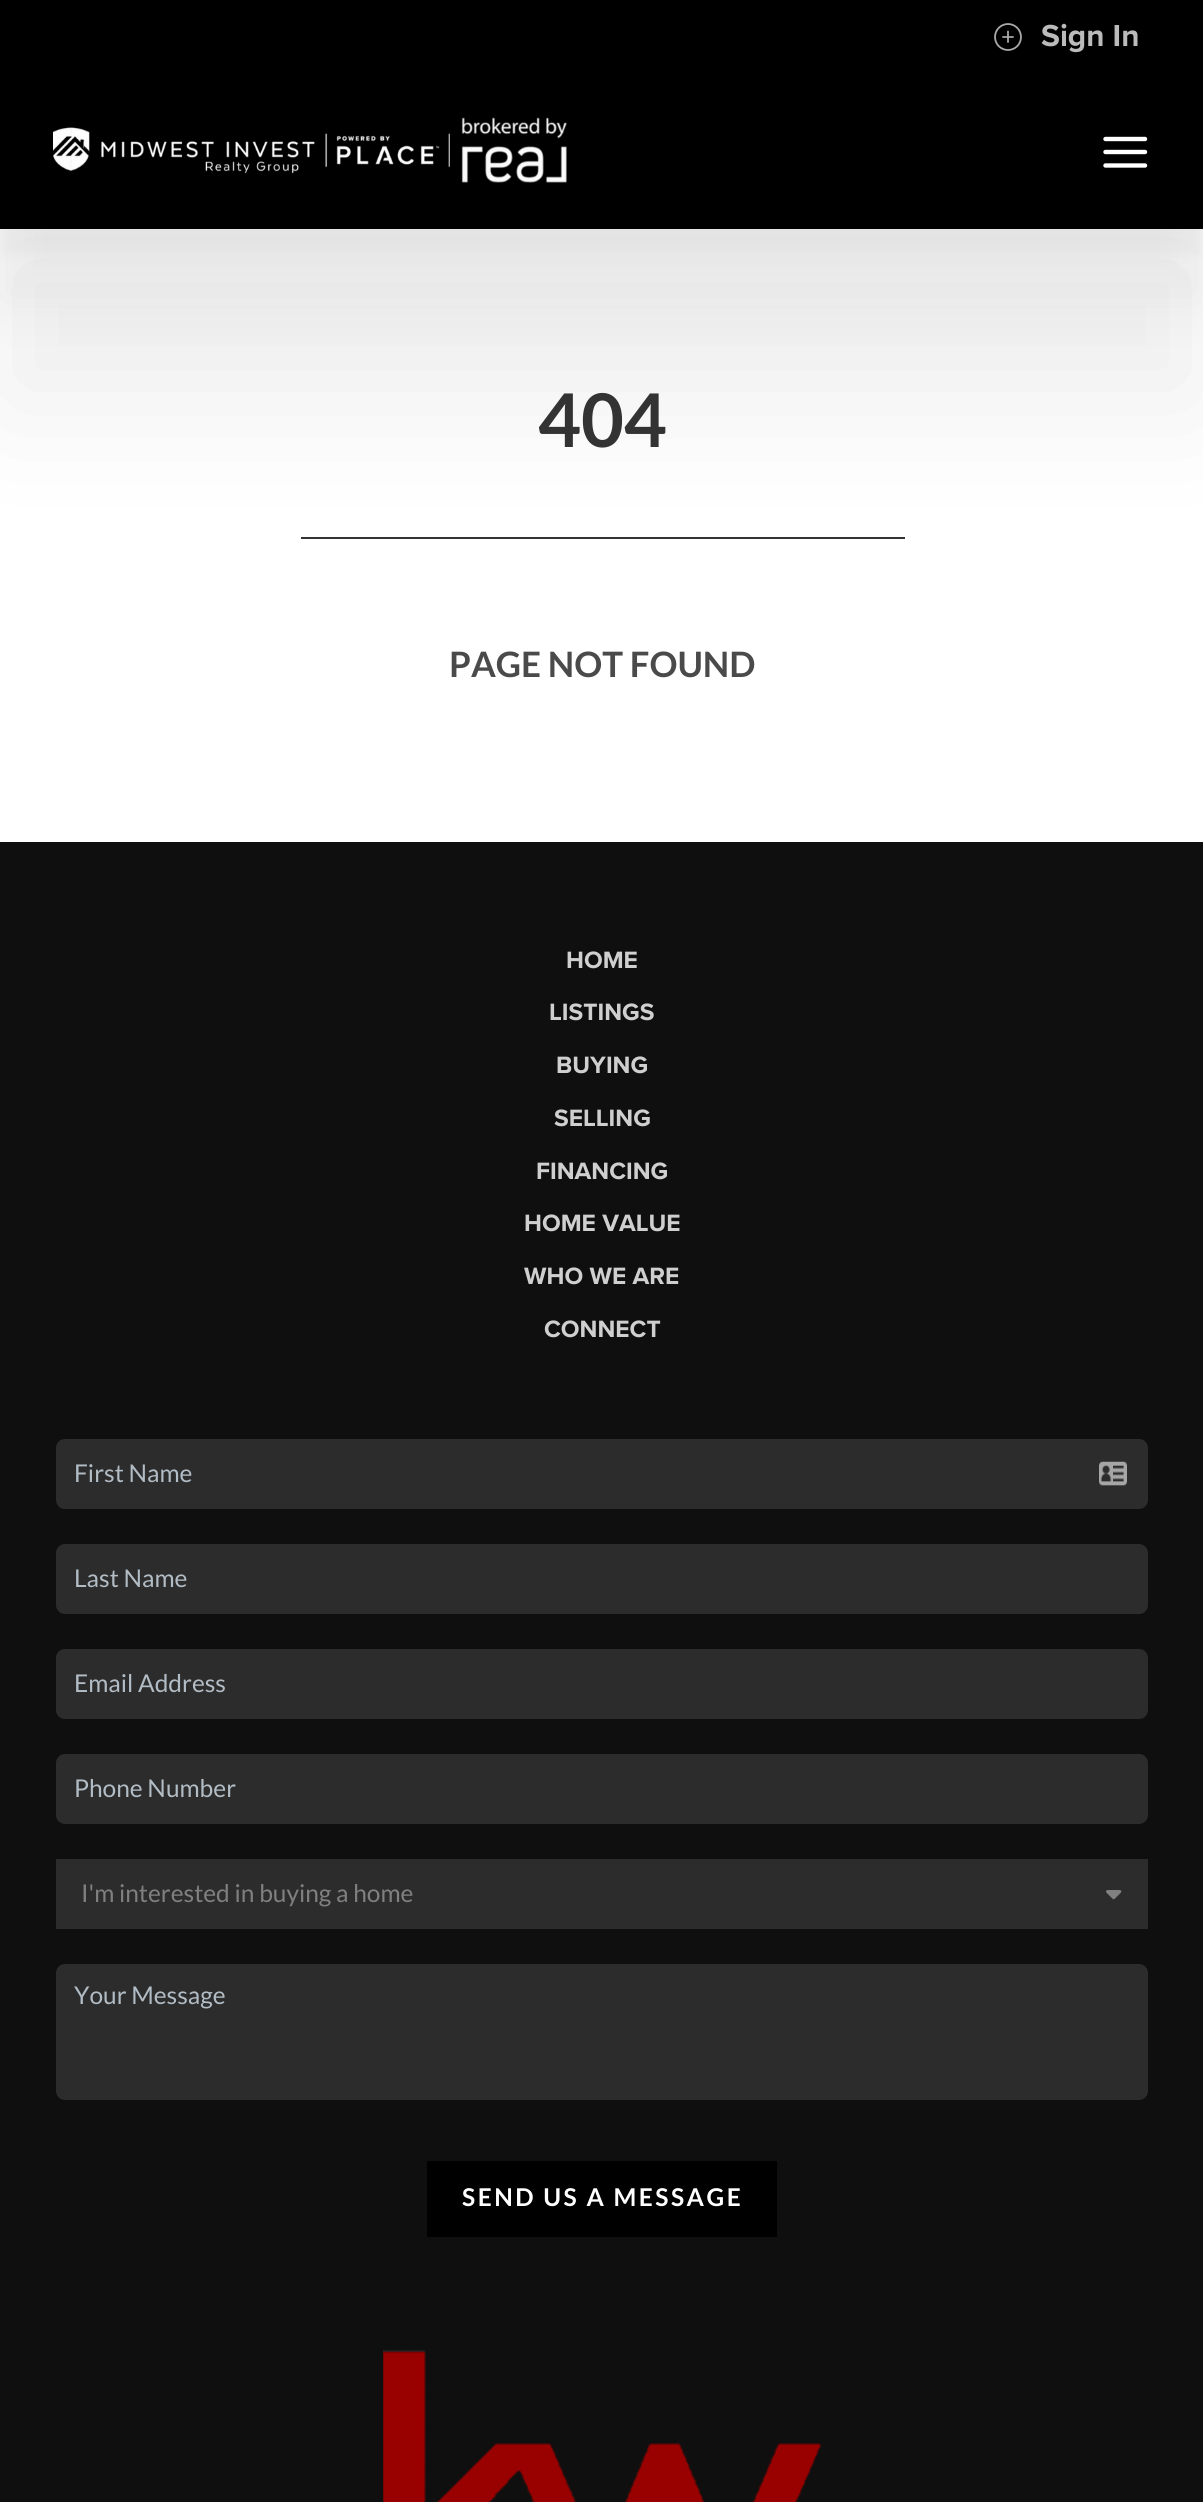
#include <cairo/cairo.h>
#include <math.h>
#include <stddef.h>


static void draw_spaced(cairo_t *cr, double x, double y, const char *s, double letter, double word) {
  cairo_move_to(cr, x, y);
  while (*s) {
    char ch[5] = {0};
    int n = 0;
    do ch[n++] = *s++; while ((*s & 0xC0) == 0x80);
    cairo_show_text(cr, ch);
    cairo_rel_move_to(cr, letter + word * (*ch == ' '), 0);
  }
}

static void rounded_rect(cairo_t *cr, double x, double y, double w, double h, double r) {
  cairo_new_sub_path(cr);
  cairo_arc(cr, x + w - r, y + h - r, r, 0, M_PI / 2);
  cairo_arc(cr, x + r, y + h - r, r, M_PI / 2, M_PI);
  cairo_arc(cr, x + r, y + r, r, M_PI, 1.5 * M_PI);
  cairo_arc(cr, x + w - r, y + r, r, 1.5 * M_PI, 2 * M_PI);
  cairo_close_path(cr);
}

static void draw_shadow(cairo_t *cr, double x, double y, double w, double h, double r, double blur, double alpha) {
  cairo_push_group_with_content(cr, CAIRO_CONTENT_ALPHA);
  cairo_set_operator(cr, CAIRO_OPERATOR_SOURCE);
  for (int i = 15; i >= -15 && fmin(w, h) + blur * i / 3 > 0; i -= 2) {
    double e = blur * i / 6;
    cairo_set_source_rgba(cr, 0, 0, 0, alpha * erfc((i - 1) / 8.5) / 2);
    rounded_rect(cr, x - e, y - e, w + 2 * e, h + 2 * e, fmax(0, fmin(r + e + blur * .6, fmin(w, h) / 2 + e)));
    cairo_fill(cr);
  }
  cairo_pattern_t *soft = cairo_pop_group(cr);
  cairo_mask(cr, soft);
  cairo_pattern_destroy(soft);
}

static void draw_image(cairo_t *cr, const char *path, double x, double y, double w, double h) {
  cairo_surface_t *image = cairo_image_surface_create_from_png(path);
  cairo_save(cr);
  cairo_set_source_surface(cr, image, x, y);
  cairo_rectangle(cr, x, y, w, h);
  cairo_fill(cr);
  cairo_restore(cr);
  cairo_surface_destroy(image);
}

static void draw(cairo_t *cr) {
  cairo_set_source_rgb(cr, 1, 1, 1);
  cairo_paint(cr);
  cairo_set_source_rgb(cr, 51 / 255.0, 51 / 255.0, 51 / 255.0);
  cairo_rectangle(cr, 301, 537, 604, 2);
  cairo_fill(cr);
  cairo_set_source_rgb(cr, 0, 0, 0);
  draw_shadow(cr, 0, 247, 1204, 157, 0, 70, 0.07);
  draw_shadow(cr, 0, 145, 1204, 158, 0, 29, 0.05);
  draw_shadow(cr, 0, 95, 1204, 157, 0, 9, 0.04);
  cairo_set_source_rgb(cr, 0, 0, 0);
  cairo_rectangle(cr, 0, 0, 1203, 229);
  cairo_fill(cr);
  cairo_arc(cr, 1008, 37, 13, 0, 2 * M_PI);
  cairo_set_source_rgb(cr, 170 / 255.0, 170 / 255.0, 170 / 255.0);
  cairo_set_line_width(cr, 1.8);
  cairo_stroke(cr);
  cairo_new_path(cr);
  cairo_move_to(cr, 1008, 31.5);
  cairo_line_to(cr, 1008, 42);
  cairo_move_to(cr, 1003, 37);
  cairo_line_to(cr, 1013, 37);
  cairo_set_line_cap(cr, CAIRO_LINE_CAP_ROUND);
  cairo_set_line_join(cr, CAIRO_LINE_JOIN_ROUND);
  cairo_stroke(cr);
  draw_image(cr, "images/1.png", 53, 117, 514, 66);
  cairo_new_path(cr);
  cairo_move_to(cr, 1105.5, 152);
  cairo_line_to(cr, 1145, 152);
  cairo_move_to(cr, 1105.5, 139);
  cairo_line_to(cr, 1145, 139);
  cairo_move_to(cr, 1105.5, 165.5);
  cairo_line_to(cr, 1145, 165.5);
  cairo_set_source_rgb(cr, 1, 1, 1);
  cairo_set_line_width(cr, 4.4);
  cairo_stroke(cr);
  cairo_set_source_rgb(cr, 15 / 255.0, 15 / 255.0, 15 / 255.0);
  cairo_rectangle(cr, 0, 842, 1203, 1660);
  cairo_fill(cr);
  cairo_set_source_rgb(cr, 44 / 255.0, 44 / 255.0, 44 / 255.0);
  rounded_rect(cr, 56, 1439, 1092, 70, 9);
  cairo_fill(cr);
  draw_image(cr, "images/2.png", 1099, 1461, 28, 25);
  rounded_rect(cr, 56, 1544, 1092, 70, 9);
  cairo_fill(cr);
  rounded_rect(cr, 56, 1649, 1092, 70, 9);
  cairo_fill(cr);
  rounded_rect(cr, 56, 1754, 1092, 70, 9);
  cairo_fill(cr);
  cairo_rectangle(cr, 56, 1859, 1092, 70);
  cairo_fill(cr);
  draw_image(cr, "images/3.png", 1106, 1890, 16, 10);
  rounded_rect(cr, 56, 1964, 1092, 136, 9);
  cairo_fill(cr);
  cairo_set_source_rgb(cr, 0, 0, 0);
  cairo_rectangle(cr, 427, 2161, 350, 76);
  cairo_fill(cr);
  draw_image(cr, "images/4.png", 383, 2350, 438, 152);
  cairo_select_font_face(cr, "Proxima Nova", CAIRO_FONT_SLANT_NORMAL, CAIRO_FONT_WEIGHT_BOLD);
  cairo_set_font_size(cr, 31.5);
  cairo_set_source_rgb(cr, 187 / 255.0, 187 / 255.0, 187 / 255.0);
  cairo_move_to(cr, 1041, 46);
  cairo_show_text(cr, "Sign In");
  cairo_select_font_face(cr, "Lato", CAIRO_FONT_SLANT_NORMAL, CAIRO_FONT_WEIGHT_BOLD);
  cairo_set_font_size(cr, 74);
  cairo_set_source_rgb(cr, 51 / 255.0, 51 / 255.0, 51 / 255.0);
  cairo_move_to(cr, 538, 447);
  cairo_show_text(cr, "404");
  cairo_set_font_size(cr, 35);
  cairo_set_source_rgb(cr, 74 / 255.0, 74 / 255.0, 74 / 255.0);
  cairo_move_to(cr, 449, 677);
  cairo_show_text(cr, "PAGE NOT FOUND");
  cairo_select_font_face(cr, "Proxima Nova", CAIRO_FONT_SLANT_NORMAL, CAIRO_FONT_WEIGHT_BOLD);
  cairo_set_font_size(cr, 24.5);
  cairo_set_source_rgb(cr, 207 / 255.0, 207 / 255.0, 207 / 255.0);
  cairo_move_to(cr, 566, 968);
  cairo_show_text(cr, "HOME");
  cairo_move_to(cr, 549, 1020);
  cairo_show_text(cr, "LISTINGS");
  cairo_move_to(cr, 556, 1073);
  cairo_show_text(cr, "BUYING");
  cairo_move_to(cr, 554, 1126);
  cairo_show_text(cr, "SELLING");
  cairo_move_to(cr, 536, 1179);
  cairo_show_text(cr, "FINANCING");
  cairo_move_to(cr, 524, 1231);
  cairo_show_text(cr, "HOME VALUE");
  cairo_move_to(cr, 524, 1284);
  cairo_show_text(cr, "WHO WE ARE");
  cairo_move_to(cr, 544, 1337);
  cairo_show_text(cr, "CONNECT");
  cairo_select_font_face(cr, "Lato", CAIRO_FONT_SLANT_NORMAL, CAIRO_FONT_WEIGHT_NORMAL);
  cairo_set_source_rgb(cr, 178 / 255.0, 188 / 255.0, 197 / 255.0);
  cairo_move_to(cr, 74, 1482);
  cairo_show_text(cr, "First Name");
  cairo_move_to(cr, 74, 1587);
  cairo_show_text(cr, "Last Name");
  cairo_move_to(cr, 74, 1692);
  cairo_show_text(cr, "Email Address");
  cairo_move_to(cr, 74, 1797);
  cairo_show_text(cr, "Phone Number");
  cairo_set_source_rgb(cr, 128 / 255.0, 128 / 255.0, 128 / 255.0);
  cairo_move_to(cr, 81, 1902);
  cairo_show_text(cr, "I'm interested in buying a home");
  cairo_set_source_rgb(cr, 178 / 255.0, 188 / 255.0, 197 / 255.0);
  cairo_move_to(cr, 74, 2004);
  cairo_show_text(cr, "Your Message");
  cairo_select_font_face(cr, "Lato", CAIRO_FONT_SLANT_NORMAL, CAIRO_FONT_WEIGHT_BOLD);
  cairo_set_source_rgb(cr, 1, 1, 1);
  draw_spaced(cr, 462, 2206, "SEND US A MESSAGE", 2.5, 0);
}

int main(void) {
  cairo_surface_t *surface = cairo_image_surface_create(CAIRO_FORMAT_RGB24, 1203, 2502);
  cairo_t *cr = cairo_create(surface);
  cairo_font_options_t *options = cairo_font_options_create();
  cairo_font_options_set_hint_metrics(options, CAIRO_HINT_METRICS_OFF);
  cairo_font_options_set_hint_style(options, CAIRO_HINT_STYLE_NONE);
  cairo_set_font_options(cr, options);
  cairo_set_miter_limit(cr, 4);
  draw(cr);
  cairo_surface_write_to_png(surface, "out.png");
  cairo_font_options_destroy(options);
  cairo_destroy(cr);
  cairo_surface_destroy(surface);
  return 0;
}
